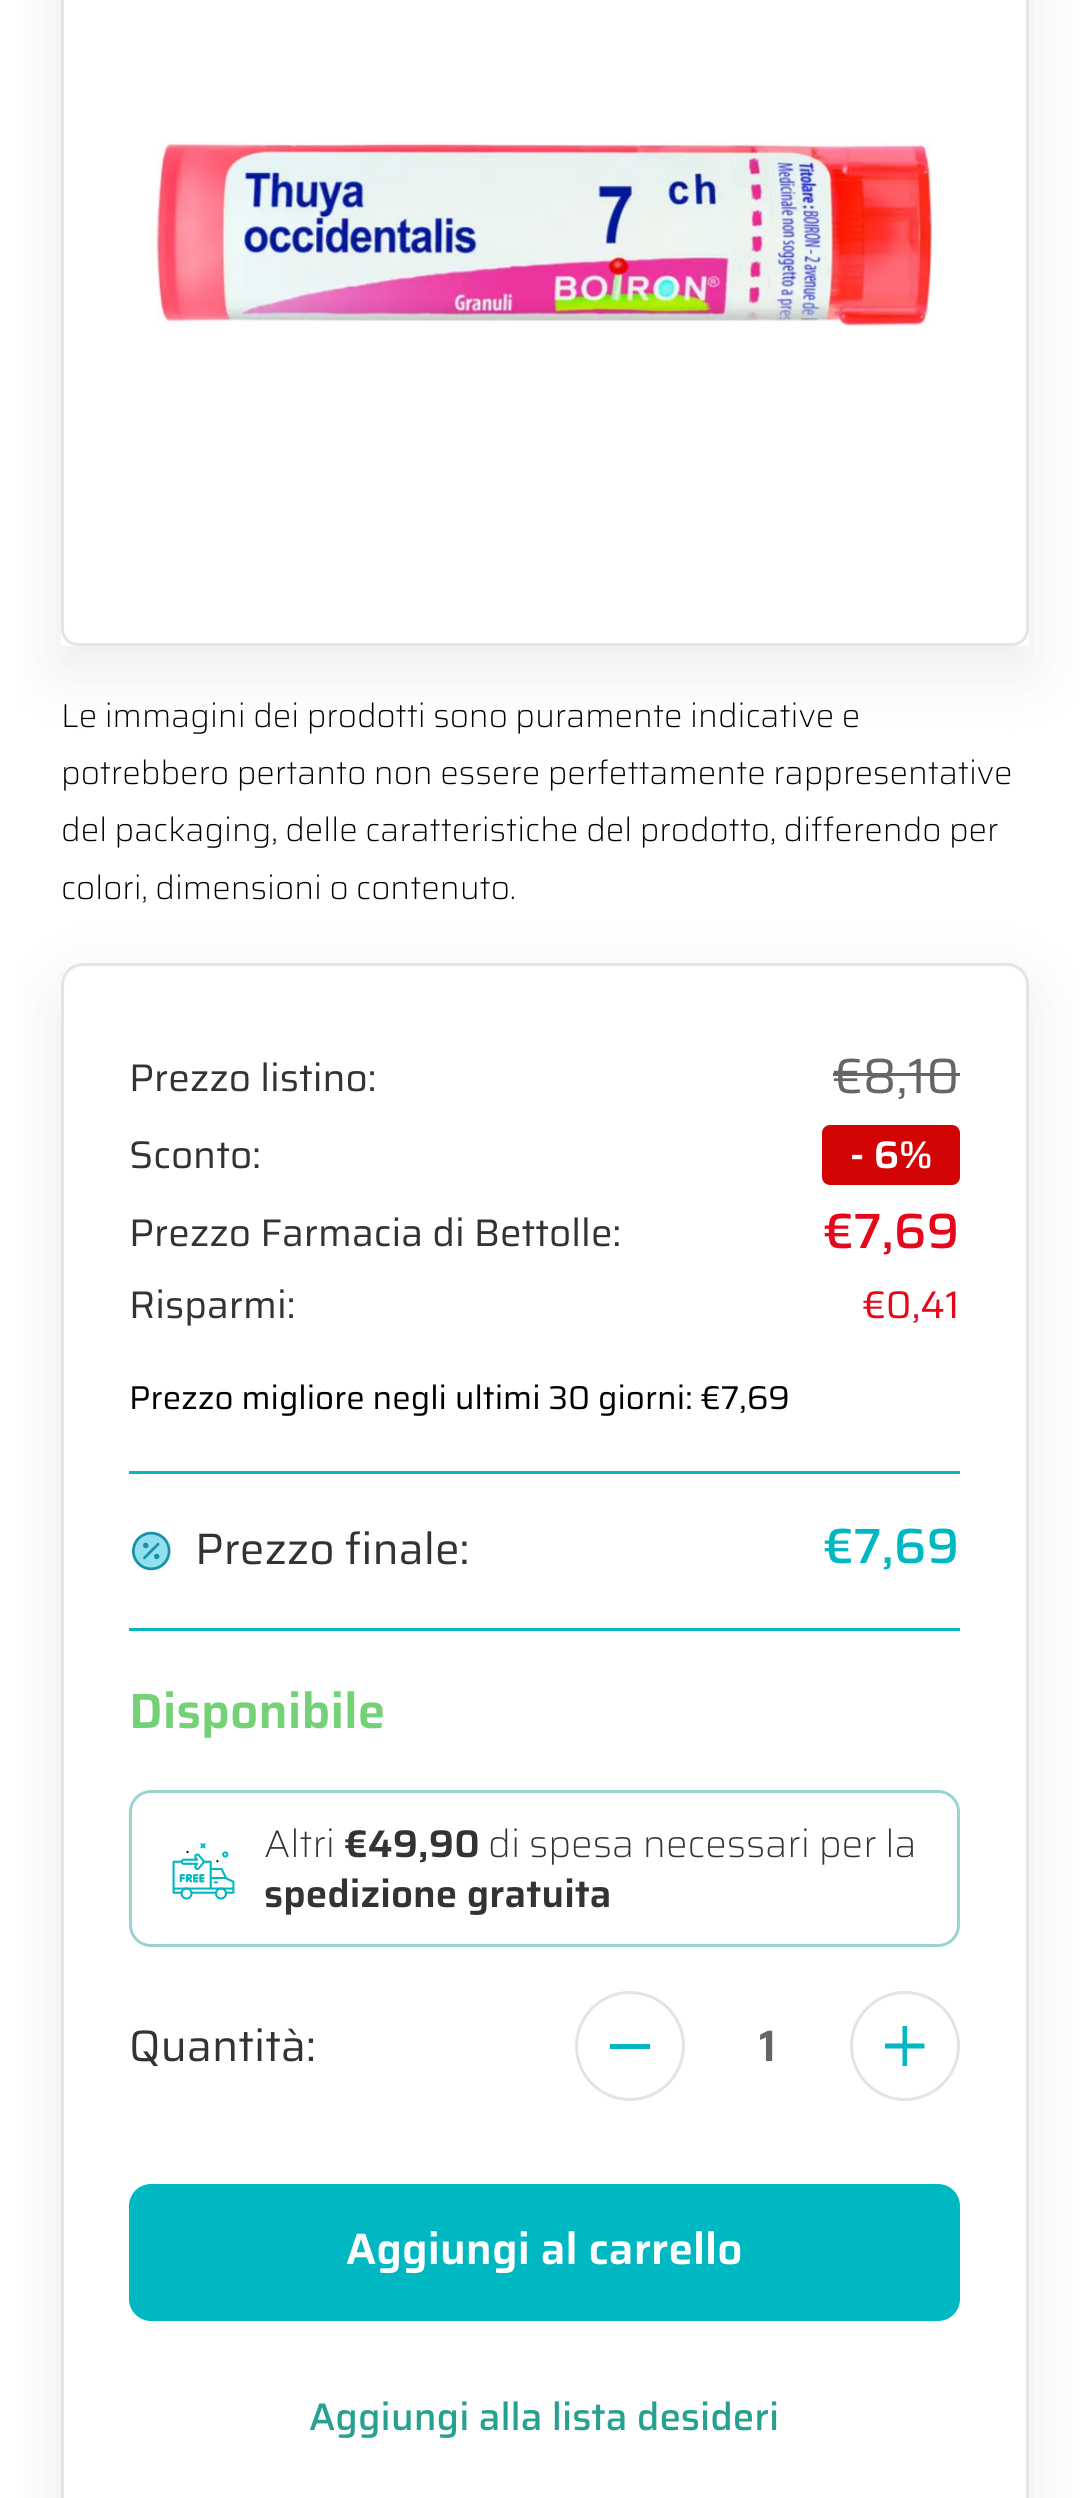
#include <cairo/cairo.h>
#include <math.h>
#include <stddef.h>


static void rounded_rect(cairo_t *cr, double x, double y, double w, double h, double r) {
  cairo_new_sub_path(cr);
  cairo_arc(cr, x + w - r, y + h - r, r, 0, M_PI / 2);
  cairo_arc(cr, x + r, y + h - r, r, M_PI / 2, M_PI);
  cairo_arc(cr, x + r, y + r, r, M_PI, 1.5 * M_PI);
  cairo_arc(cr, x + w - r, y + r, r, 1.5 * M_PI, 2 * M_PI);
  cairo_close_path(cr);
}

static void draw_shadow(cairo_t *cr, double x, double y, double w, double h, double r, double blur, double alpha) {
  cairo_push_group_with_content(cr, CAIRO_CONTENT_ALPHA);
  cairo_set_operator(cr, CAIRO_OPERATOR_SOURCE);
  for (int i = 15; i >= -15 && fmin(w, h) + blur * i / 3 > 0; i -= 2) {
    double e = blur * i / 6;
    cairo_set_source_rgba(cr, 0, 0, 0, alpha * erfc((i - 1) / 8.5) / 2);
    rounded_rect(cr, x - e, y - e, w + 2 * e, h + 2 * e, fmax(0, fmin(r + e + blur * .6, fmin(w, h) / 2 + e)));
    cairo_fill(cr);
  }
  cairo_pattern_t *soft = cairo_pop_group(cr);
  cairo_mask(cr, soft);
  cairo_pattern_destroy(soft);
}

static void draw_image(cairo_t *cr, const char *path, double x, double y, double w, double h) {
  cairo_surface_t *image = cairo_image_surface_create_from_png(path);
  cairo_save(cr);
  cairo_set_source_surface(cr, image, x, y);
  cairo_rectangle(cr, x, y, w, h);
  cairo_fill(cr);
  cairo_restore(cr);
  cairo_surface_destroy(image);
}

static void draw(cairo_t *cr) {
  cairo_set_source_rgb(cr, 1, 1, 1);
  cairo_paint(cr);
  cairo_save(cr);
  cairo_rectangle(cr, 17, 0, 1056, 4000);
  cairo_clip(cr);
  cairo_set_fill_rule(cr, CAIRO_FILL_RULE_EVEN_ODD);
  cairo_new_path(cr);
  cairo_move_to(cr, 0, 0);
  cairo_line_to(cr, 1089, 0);
  cairo_line_to(cr, 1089, 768);
  cairo_line_to(cr, 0, 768);
  cairo_close_path(cr);
  cairo_move_to(cr, 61, -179);
  cairo_line_to(cr, 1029, -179);
  cairo_line_to(cr, 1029, 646);
  cairo_line_to(cr, 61, 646);
  cairo_close_path(cr);
  cairo_clip(cr);
  cairo_set_source_rgb(cr, 149 / 255.0, 157 / 255.0, 165 / 255.0);
  draw_shadow(cr, 61, -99, 968, 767, 0, 33, 0.2);
  cairo_restore(cr);
  rounded_rect(cr, 62.5, -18.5, 965, 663, 15.5);
  cairo_set_source_rgb(cr, 228 / 255.0, 228 / 255.0, 228 / 255.0);
  cairo_set_line_width(cr, 3);
  cairo_stroke(cr);
  draw_image(cr, "images/1.png", 156, 139, 777, 188);
  rounded_rect(cr, 130.5, 1791.5, 828, 154, 20.5);
  cairo_set_source_rgb(cr, 153 / 255.0, 213 / 255.0, 207 / 255.0);
  cairo_stroke(cr);
  cairo_save(cr);
  cairo_rectangle(cr, 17, 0, 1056, 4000);
  cairo_clip(cr);
  cairo_set_fill_rule(cr, CAIRO_FILL_RULE_EVEN_ODD);
  cairo_new_path(cr);
  cairo_move_to(cr, 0, 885);
  cairo_line_to(cr, 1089, 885);
  cairo_line_to(cr, 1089, 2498);
  cairo_line_to(cr, 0, 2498);
  cairo_close_path(cr);
  cairo_move_to(cr, 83, 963);
  cairo_line_to(cr, 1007, 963);
  cairo_curve_to(cr, 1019, 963, 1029, 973, 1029, 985);
  cairo_line_to(cr, 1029, 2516);
  cairo_curve_to(cr, 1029, 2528, 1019, 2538, 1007, 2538);
  cairo_line_to(cr, 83, 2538);
  cairo_curve_to(cr, 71, 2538, 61, 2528, 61, 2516);
  cairo_line_to(cr, 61, 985);
  cairo_curve_to(cr, 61, 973, 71, 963, 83, 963);
  cairo_close_path(cr);
  cairo_clip(cr);
  cairo_set_source_rgb(cr, 149 / 255.0, 157 / 255.0, 165 / 255.0);
  draw_shadow(cr, 61, 985, 968, 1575, 22, 33, 0.2);
  cairo_restore(cr);
  rounded_rect(cr, 62.5, 964.5, 965, 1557, 20.5);
  cairo_set_source_rgb(cr, 228 / 255.0, 228 / 255.0, 228 / 255.0);
  cairo_stroke(cr);
  cairo_set_source_rgb(cr, 102 / 255.0, 102 / 255.0, 102 / 255.0);
  cairo_rectangle(cr, 833, 1073, 127, 3);
  cairo_fill(cr);
  cairo_set_source_rgb(cr, 210 / 255.0, 4 / 255.0, 4 / 255.0);
  rounded_rect(cr, 822, 1125, 138, 60, 8);
  cairo_fill(cr);
  cairo_set_source_rgb(cr, 1 / 255.0, 184 / 255.0, 194 / 255.0);
  cairo_rectangle(cr, 129, 1471, 831, 3);
  cairo_fill(cr);
  cairo_rectangle(cr, 129, 1628, 831, 3);
  cairo_fill(cr);
  draw_image(cr, "images/2.png", 132, 1531, 39, 40);
  draw_image(cr, "images/3.png", 172, 1843, 63, 57);
  cairo_arc(cr, 630, 2046, 53.5, 0, 2 * M_PI);
  cairo_set_source_rgb(cr, 228 / 255.0, 228 / 255.0, 228 / 255.0);
  cairo_stroke(cr);
  cairo_set_source_rgb(cr, 1 / 255.0, 184 / 255.0, 194 / 255.0);
  cairo_rectangle(cr, 610, 2044, 40, 5);
  cairo_fill(cr);
  cairo_arc(cr, 905, 2046, 53.5, 0, 2 * M_PI);
  cairo_set_source_rgb(cr, 228 / 255.0, 228 / 255.0, 228 / 255.0);
  cairo_stroke(cr);
  cairo_set_source_rgb(cr, 1 / 255.0, 184 / 255.0, 194 / 255.0);
  cairo_new_path(cr);
  cairo_move_to(cr, 902.5, 2048.5);
  cairo_line_to(cr, 902.5, 2066);
  cairo_line_to(cr, 907, 2066);
  cairo_line_to(cr, 907, 2048.5);
  cairo_line_to(cr, 924.5, 2048.5);
  cairo_line_to(cr, 924.5, 2043.5);
  cairo_line_to(cr, 907, 2043.5);
  cairo_line_to(cr, 907, 2026);
  cairo_line_to(cr, 902.5, 2026);
  cairo_line_to(cr, 902.5, 2043.5);
  cairo_line_to(cr, 885, 2043.5);
  cairo_line_to(cr, 885, 2048.5);
  cairo_close_path(cr);
  cairo_fill(cr);
  cairo_set_source_rgb(cr, 0, 184 / 255.0, 194 / 255.0);
  rounded_rect(cr, 129, 2184, 831, 137, 22);
  cairo_fill(cr);
  cairo_select_font_face(cr, "Saira ExtraLight", CAIRO_FONT_SLANT_NORMAL, CAIRO_FONT_WEIGHT_NORMAL);
  cairo_set_font_size(cr, 33);
  cairo_set_source_rgb(cr, 0, 0, 0);
  cairo_move_to(cr, 61, 727);
  cairo_show_text(cr, "Le immagini dei prodotti sono puramente indicative e");
  cairo_move_to(cr, 61, 784);
  cairo_show_text(cr, "potrebbero pertanto non essere perfettamente rappresentative");
  cairo_move_to(cr, 61, 841);
  cairo_show_text(cr, "del packaging, delle caratteristiche del prodotto, differendo per");
  cairo_move_to(cr, 61, 899);
  cairo_show_text(cr, "colori, dimensioni o contenuto.");
  cairo_select_font_face(cr, "Saira", CAIRO_FONT_SLANT_NORMAL, CAIRO_FONT_WEIGHT_NORMAL);
  cairo_set_font_size(cr, 38.5);
  cairo_set_source_rgb(cr, 51 / 255.0, 51 / 255.0, 51 / 255.0);
  cairo_move_to(cr, 129, 1091);
  cairo_show_text(cr, "Prezzo listino:");
  cairo_set_font_size(cr, 49.5);
  cairo_set_source_rgb(cr, 102 / 255.0, 102 / 255.0, 102 / 255.0);
  cairo_move_to(cr, 832, 1093);
  cairo_show_text(cr, "€8,10");
  cairo_set_font_size(cr, 38.5);
  cairo_set_source_rgb(cr, 51 / 255.0, 51 / 255.0, 51 / 255.0);
  cairo_move_to(cr, 129, 1168);
  cairo_show_text(cr, "Sconto:");
  cairo_select_font_face(cr, "Saira SemiBold", CAIRO_FONT_SLANT_NORMAL, CAIRO_FONT_WEIGHT_NORMAL);
  cairo_set_source_rgb(cr, 1, 1, 1);
  cairo_move_to(cr, 850, 1168);
  cairo_show_text(cr, "- 6%");
  cairo_select_font_face(cr, "Saira", CAIRO_FONT_SLANT_NORMAL, CAIRO_FONT_WEIGHT_NORMAL);
  cairo_set_source_rgb(cr, 51 / 255.0, 51 / 255.0, 51 / 255.0);
  cairo_move_to(cr, 129, 1246);
  cairo_show_text(cr, "Prezzo Farmacia di Bettolle:");
  cairo_select_font_face(cr, "Saira Medium", CAIRO_FONT_SLANT_NORMAL, CAIRO_FONT_WEIGHT_NORMAL);
  cairo_set_font_size(cr, 49.5);
  cairo_set_source_rgb(cr, 229 / 255.0, 7 / 255.0, 26 / 255.0);
  cairo_move_to(cr, 823, 1248);
  cairo_show_text(cr, "€7,69");
  cairo_select_font_face(cr, "Saira", CAIRO_FONT_SLANT_NORMAL, CAIRO_FONT_WEIGHT_NORMAL);
  cairo_set_font_size(cr, 38.5);
  cairo_set_source_rgb(cr, 51 / 255.0, 51 / 255.0, 51 / 255.0);
  cairo_move_to(cr, 129, 1318);
  cairo_show_text(cr, "Risparmi:");
  cairo_set_source_rgb(cr, 229 / 255.0, 7 / 255.0, 26 / 255.0);
  cairo_move_to(cr, 862, 1318);
  cairo_show_text(cr, "€0,41");
  cairo_set_font_size(cr, 33);
  cairo_set_source_rgb(cr, 0, 0, 0);
  cairo_move_to(cr, 129, 1409);
  cairo_show_text(cr, "Prezzo migliore negli ultimi 30 giorni: €7,69");
  cairo_set_font_size(cr, 44);
  cairo_set_source_rgb(cr, 51 / 255.0, 51 / 255.0, 51 / 255.0);
  cairo_move_to(cr, 195, 1564);
  cairo_show_text(cr, "Prezzo finale:");
  cairo_select_font_face(cr, "Saira Medium", CAIRO_FONT_SLANT_NORMAL, CAIRO_FONT_WEIGHT_NORMAL);
  cairo_set_font_size(cr, 49.5);
  cairo_set_source_rgb(cr, 1 / 255.0, 184 / 255.0, 194 / 255.0);
  cairo_move_to(cr, 823, 1563);
  cairo_show_text(cr, "€7,69");
  cairo_select_font_face(cr, "Saira SemiBold", CAIRO_FONT_SLANT_NORMAL, CAIRO_FONT_WEIGHT_NORMAL);
  cairo_set_source_rgb(cr, 117 / 255.0, 209 / 255.0, 117 / 255.0);
  cairo_move_to(cr, 129, 1728);
  cairo_show_text(cr, "Disponibile");
  cairo_select_font_face(cr, "Saira ExtraLight", CAIRO_FONT_SLANT_NORMAL, CAIRO_FONT_WEIGHT_NORMAL);
  cairo_set_font_size(cr, 38.5);
  cairo_set_source_rgb(cr, 51 / 255.0, 51 / 255.0, 51 / 255.0);
  cairo_move_to(cr, 264, 1857);
  cairo_show_text(cr, "Altri");
  cairo_select_font_face(cr, "Saira SemiBold", CAIRO_FONT_SLANT_NORMAL, CAIRO_FONT_WEIGHT_NORMAL);
  cairo_move_to(cr, 344, 1857);
  cairo_show_text(cr, "€49,90");
  cairo_select_font_face(cr, "Saira ExtraLight", CAIRO_FONT_SLANT_NORMAL, CAIRO_FONT_WEIGHT_NORMAL);
  cairo_move_to(cr, 488, 1857);
  cairo_show_text(cr, "di spesa necessari per la");
  cairo_select_font_face(cr, "Saira SemiBold", CAIRO_FONT_SLANT_NORMAL, CAIRO_FONT_WEIGHT_NORMAL);
  cairo_move_to(cr, 264, 1907);
  cairo_show_text(cr, "spedizione gratuita");
  cairo_select_font_face(cr, "Saira", CAIRO_FONT_SLANT_NORMAL, CAIRO_FONT_WEIGHT_NORMAL);
  cairo_set_font_size(cr, 44);
  cairo_move_to(cr, 129, 2061);
  cairo_show_text(cr, "Quantità:");
  cairo_select_font_face(cr, "Saira SemiBold", CAIRO_FONT_SLANT_NORMAL, CAIRO_FONT_WEIGHT_NORMAL);
  cairo_set_source_rgb(cr, 102 / 255.0, 102 / 255.0, 102 / 255.0);
  cairo_move_to(cr, 759, 2061);
  cairo_show_text(cr, "1");
  cairo_set_source_rgb(cr, 1, 1, 1);
  cairo_move_to(cr, 346, 2264);
  cairo_show_text(cr, "Aggiungi al carrello");
  cairo_select_font_face(cr, "Saira Medium", CAIRO_FONT_SLANT_NORMAL, CAIRO_FONT_WEIGHT_NORMAL);
  cairo_set_font_size(cr, 38.5);
  cairo_set_source_rgb(cr, 38 / 255.0, 161 / 255.0, 143 / 255.0);
  cairo_move_to(cr, 309, 2430);
  cairo_show_text(cr, "Aggiungi alla lista desideri");
}

int main(void) {
  cairo_surface_t *surface = cairo_image_surface_create(CAIRO_FORMAT_RGB24, 1089, 2498);
  cairo_t *cr = cairo_create(surface);
  cairo_font_options_t *options = cairo_font_options_create();
  cairo_font_options_set_hint_metrics(options, CAIRO_HINT_METRICS_OFF);
  cairo_font_options_set_hint_style(options, CAIRO_HINT_STYLE_NONE);
  cairo_set_font_options(cr, options);
  cairo_set_miter_limit(cr, 4);
  draw(cr);
  cairo_surface_write_to_png(surface, "out.png");
  cairo_font_options_destroy(options);
  cairo_destroy(cr);
  cairo_surface_destroy(surface);
  return 0;
}
